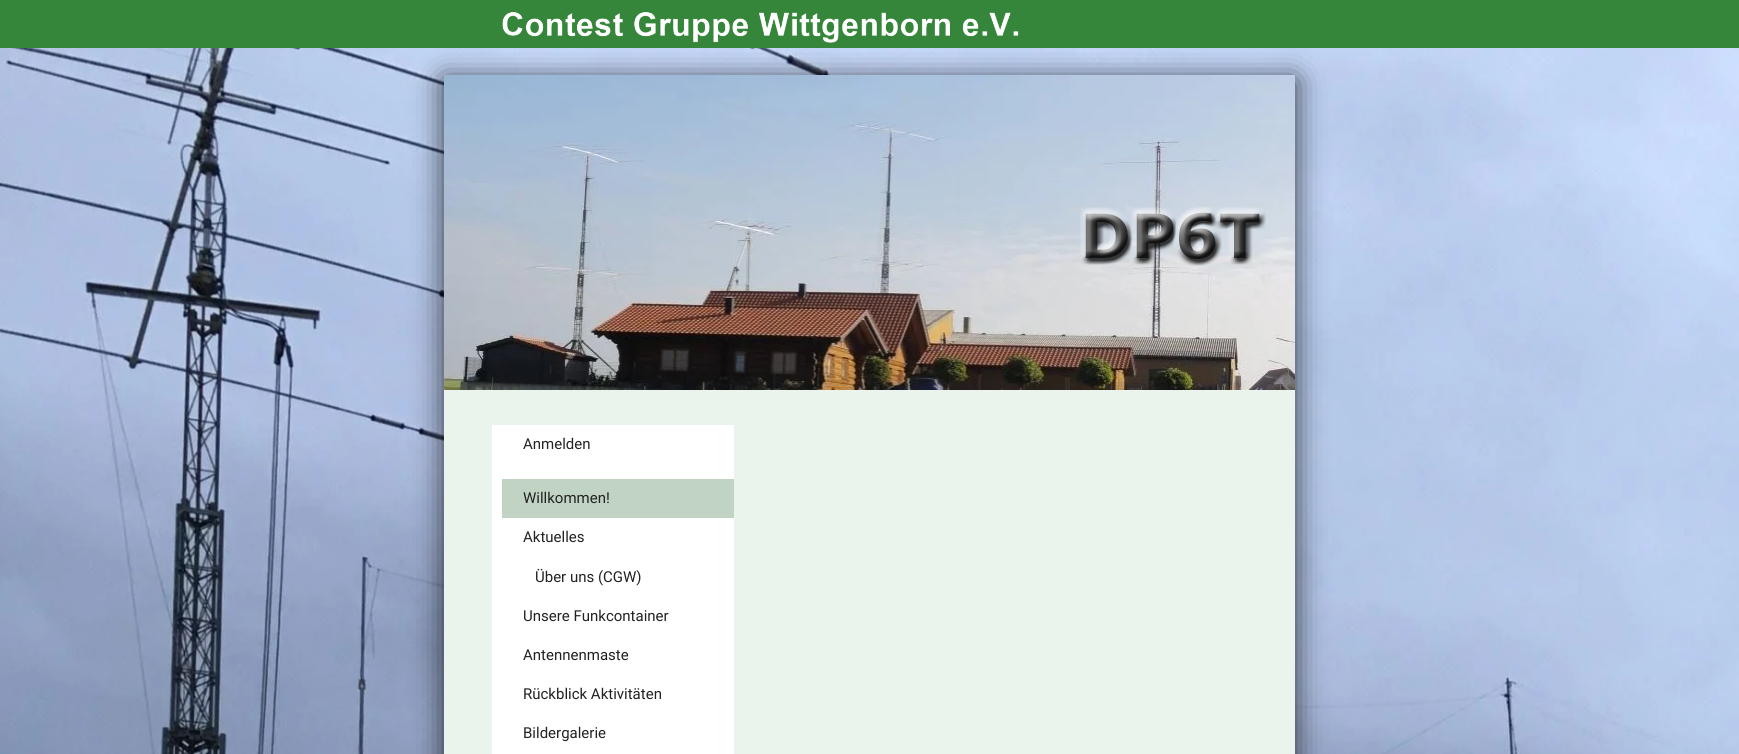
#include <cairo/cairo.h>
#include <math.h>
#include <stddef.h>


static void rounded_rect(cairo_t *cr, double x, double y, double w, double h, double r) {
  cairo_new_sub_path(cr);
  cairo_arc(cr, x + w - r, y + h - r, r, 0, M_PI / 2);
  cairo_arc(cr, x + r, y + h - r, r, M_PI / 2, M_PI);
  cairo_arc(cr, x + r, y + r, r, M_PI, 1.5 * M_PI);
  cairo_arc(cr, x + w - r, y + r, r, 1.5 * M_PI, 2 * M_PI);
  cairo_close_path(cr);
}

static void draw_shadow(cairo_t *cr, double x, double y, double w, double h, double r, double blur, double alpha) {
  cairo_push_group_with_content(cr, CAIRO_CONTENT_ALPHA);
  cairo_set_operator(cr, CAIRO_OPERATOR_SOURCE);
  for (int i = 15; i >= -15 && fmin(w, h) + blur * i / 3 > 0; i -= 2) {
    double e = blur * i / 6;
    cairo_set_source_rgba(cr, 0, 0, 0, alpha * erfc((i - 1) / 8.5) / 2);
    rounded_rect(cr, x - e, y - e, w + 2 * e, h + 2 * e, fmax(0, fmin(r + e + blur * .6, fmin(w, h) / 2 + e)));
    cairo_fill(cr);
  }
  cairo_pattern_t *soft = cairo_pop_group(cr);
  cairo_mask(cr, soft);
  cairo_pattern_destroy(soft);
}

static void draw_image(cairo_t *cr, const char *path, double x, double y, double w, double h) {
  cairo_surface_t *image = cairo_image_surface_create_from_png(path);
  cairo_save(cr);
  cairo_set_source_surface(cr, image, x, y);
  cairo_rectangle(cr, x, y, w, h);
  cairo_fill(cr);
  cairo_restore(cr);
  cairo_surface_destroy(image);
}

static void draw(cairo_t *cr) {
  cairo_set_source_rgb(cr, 1, 1, 1);
  cairo_paint(cr);
  draw_image(cr, "images/1.png", 0, 48, 1739, 706);
  cairo_set_source_rgb(cr, 235 / 255.0, 244 / 255.0, 236 / 255.0);
  cairo_rectangle(cr, 444, 390, 851, 364);
  cairo_fill(cr);
  cairo_set_source_rgb(cr, 1, 1, 1);
  cairo_rectangle(cr, 492, 425, 242, 329);
  cairo_fill(cr);
  cairo_set_source_rgb(cr, 193 / 255.0, 211 / 255.0, 194 / 255.0);
  cairo_rectangle(cr, 502, 479, 232, 39);
  cairo_fill(cr);
  cairo_save(cr);
  cairo_set_fill_rule(cr, CAIRO_FILL_RULE_EVEN_ODD);
  cairo_new_path(cr);
  cairo_move_to(cr, 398, 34);
  cairo_line_to(cr, 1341, 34);
  cairo_line_to(cr, 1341, 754);
  cairo_line_to(cr, 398, 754);
  cairo_close_path(cr);
  cairo_move_to(cr, 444, 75);
  cairo_line_to(cr, 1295, 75);
  cairo_line_to(cr, 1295, 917);
  cairo_line_to(cr, 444, 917);
  cairo_close_path(cr);
  cairo_clip(cr);
  cairo_set_source_rgb(cr, 0, 0, 0);
  draw_shadow(cr, 444, 80, 851, 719, 0, 15, 0.75);
  cairo_restore(cr);
  cairo_set_source_rgb(cr, 53 / 255.0, 134 / 255.0, 58 / 255.0);
  cairo_rectangle(cr, 0, 0, 1739, 48);
  cairo_fill(cr);
  draw_image(cr, "images/2.png", 502, 12, 517, 31);
  draw_image(cr, "images/3.png", 444, 75, 851, 315);
  draw_image(cr, "images/4.png", 1080, 206, 186, 60);
  cairo_select_font_face(cr, "Roboto", CAIRO_FONT_SLANT_NORMAL, CAIRO_FONT_WEIGHT_NORMAL);
  cairo_set_font_size(cr, 15);
  cairo_set_source_rgb(cr, 34 / 255.0, 34 / 255.0, 34 / 255.0);
  cairo_move_to(cr, 523, 449);
  cairo_show_text(cr, "Anmelden");
  cairo_move_to(cr, 523, 503);
  cairo_show_text(cr, "Willkommen!");
  cairo_move_to(cr, 523, 542);
  cairo_show_text(cr, "Aktuelles");
  cairo_move_to(cr, 535, 582);
  cairo_show_text(cr, "Über uns (CGW)");
  cairo_move_to(cr, 523, 621);
  cairo_show_text(cr, "Unsere Funkcontainer");
  cairo_move_to(cr, 523, 660);
  cairo_show_text(cr, "Antennenmaste");
  cairo_move_to(cr, 523, 699);
  cairo_show_text(cr, "Rückblick Aktivitäten");
  cairo_move_to(cr, 523, 738);
  cairo_show_text(cr, "Bildergalerie");
}

int main(void) {
  cairo_surface_t *surface = cairo_image_surface_create(CAIRO_FORMAT_RGB24, 1739, 754);
  cairo_t *cr = cairo_create(surface);
  cairo_font_options_t *options = cairo_font_options_create();
  cairo_font_options_set_hint_metrics(options, CAIRO_HINT_METRICS_OFF);
  cairo_font_options_set_hint_style(options, CAIRO_HINT_STYLE_NONE);
  cairo_set_font_options(cr, options);
  cairo_set_miter_limit(cr, 4);
  draw(cr);
  cairo_surface_write_to_png(surface, "out.png");
  cairo_font_options_destroy(options);
  cairo_destroy(cr);
  cairo_surface_destroy(surface);
  return 0;
}
